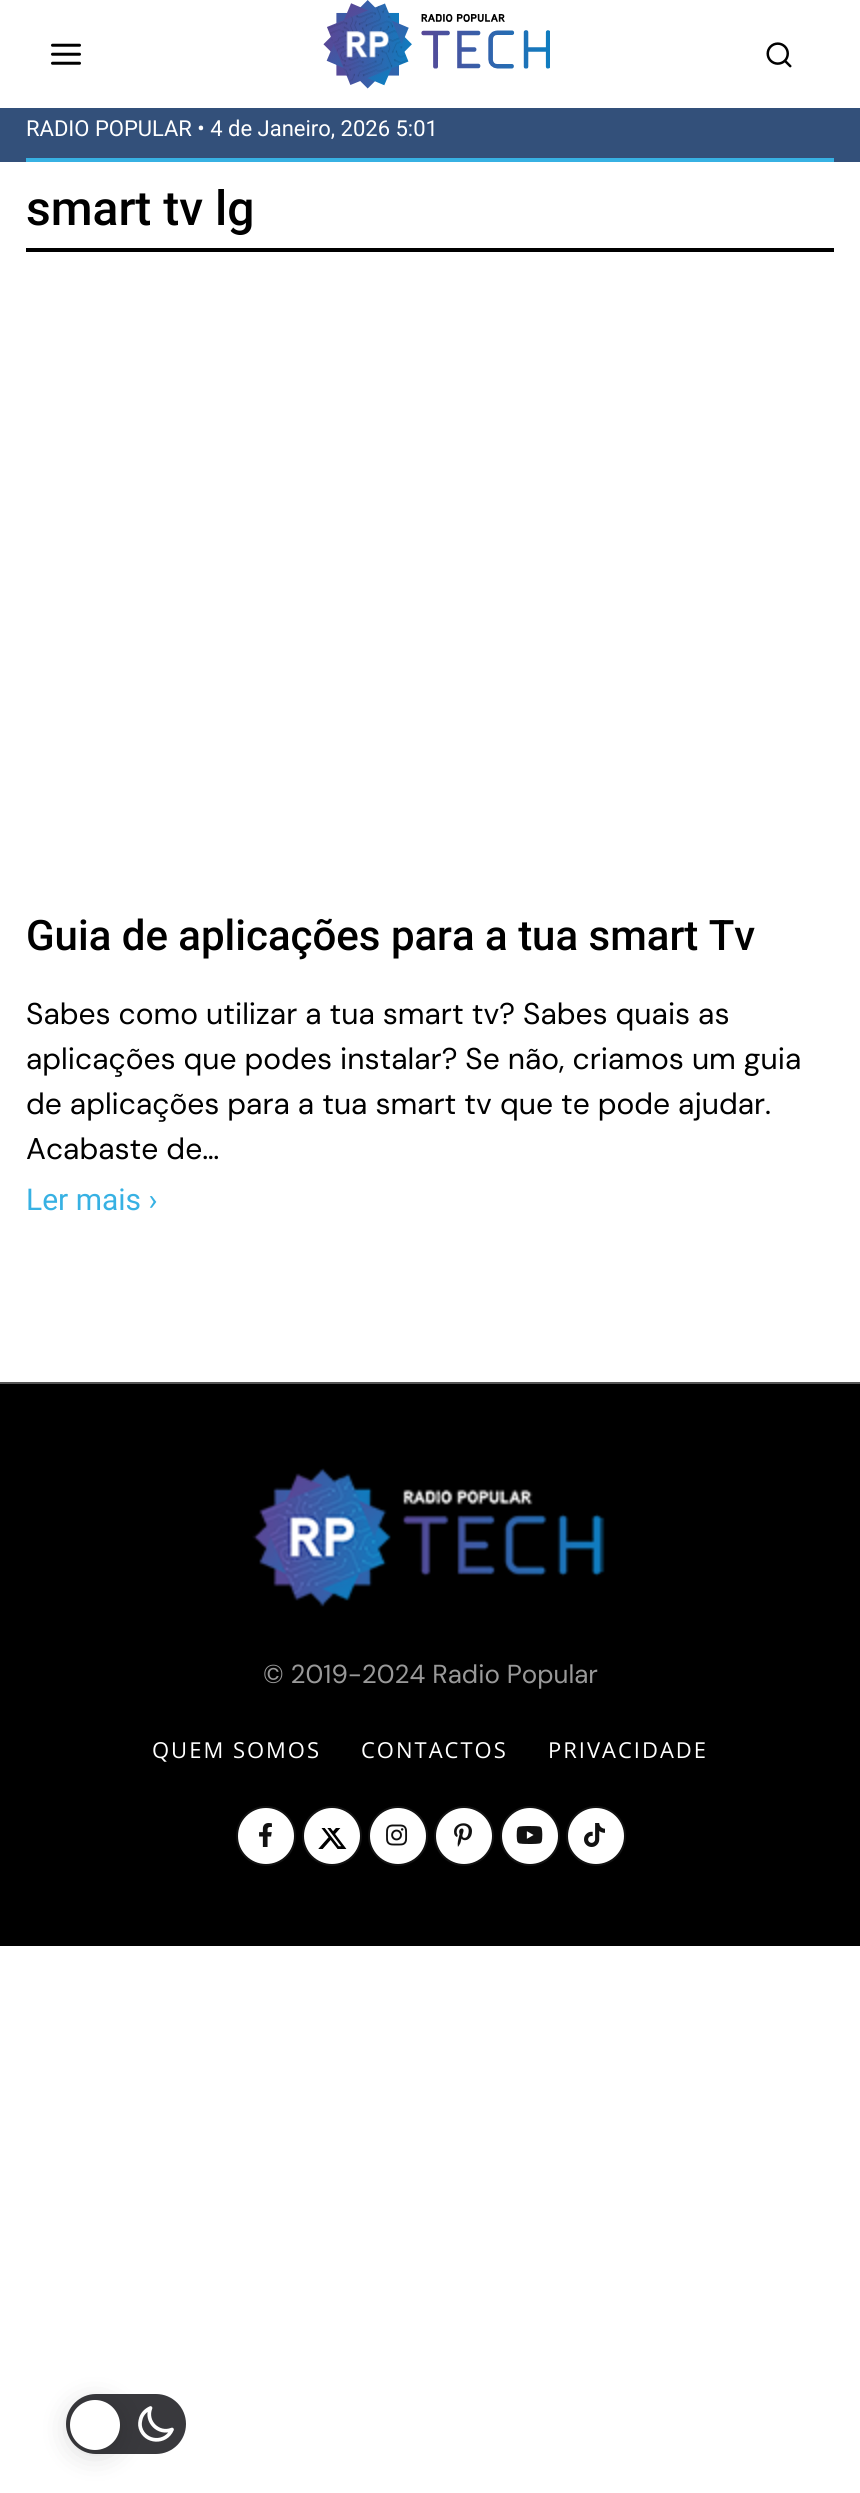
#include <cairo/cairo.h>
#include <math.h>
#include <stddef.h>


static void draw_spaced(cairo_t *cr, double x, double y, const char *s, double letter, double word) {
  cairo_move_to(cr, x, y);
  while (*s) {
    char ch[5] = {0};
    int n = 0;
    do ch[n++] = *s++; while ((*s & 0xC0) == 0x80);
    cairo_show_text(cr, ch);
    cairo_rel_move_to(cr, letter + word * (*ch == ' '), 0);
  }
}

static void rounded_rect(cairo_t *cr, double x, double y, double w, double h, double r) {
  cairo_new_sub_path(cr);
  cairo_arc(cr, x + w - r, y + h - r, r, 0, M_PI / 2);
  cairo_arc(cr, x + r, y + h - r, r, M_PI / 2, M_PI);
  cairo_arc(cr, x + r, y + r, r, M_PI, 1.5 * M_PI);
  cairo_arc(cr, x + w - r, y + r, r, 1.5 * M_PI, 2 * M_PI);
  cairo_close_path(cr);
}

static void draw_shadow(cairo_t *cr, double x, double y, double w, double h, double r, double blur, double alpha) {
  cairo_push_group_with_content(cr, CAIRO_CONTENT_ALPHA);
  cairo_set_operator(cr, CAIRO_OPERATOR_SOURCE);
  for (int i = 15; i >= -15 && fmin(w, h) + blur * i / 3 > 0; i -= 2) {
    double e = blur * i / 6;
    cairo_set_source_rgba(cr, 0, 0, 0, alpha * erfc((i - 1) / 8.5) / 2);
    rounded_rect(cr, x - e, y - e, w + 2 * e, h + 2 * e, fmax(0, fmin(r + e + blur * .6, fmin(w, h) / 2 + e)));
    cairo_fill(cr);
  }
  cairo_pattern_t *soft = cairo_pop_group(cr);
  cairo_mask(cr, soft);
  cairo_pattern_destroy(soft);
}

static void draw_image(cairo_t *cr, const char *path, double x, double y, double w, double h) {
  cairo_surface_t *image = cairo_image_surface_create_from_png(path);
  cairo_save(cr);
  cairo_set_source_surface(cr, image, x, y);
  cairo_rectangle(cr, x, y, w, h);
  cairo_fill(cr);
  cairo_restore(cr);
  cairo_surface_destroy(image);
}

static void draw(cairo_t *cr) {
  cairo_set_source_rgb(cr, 1, 1, 1);
  cairo_paint(cr);
  draw_image(cr, "images/1.png", 51, 43, 30, 22);
  draw_image(cr, "images/2.png", 323, 0, 227, 89);
  draw_image(cr, "images/3.png", 766, 42, 26, 26);
  cairo_set_source_rgb(cr, 51 / 255.0, 80 / 255.0, 122 / 255.0);
  cairo_rectangle(cr, 0, 108, 860, 54);
  cairo_fill(cr);
  cairo_set_source_rgb(cr, 55 / 255.0, 177 / 255.0, 227 / 255.0);
  cairo_rectangle(cr, 26, 158, 808, 4);
  cairo_fill(cr);
  cairo_set_source_rgb(cr, 0, 0, 0);
  cairo_rectangle(cr, 26, 248, 808, 4);
  cairo_fill(cr);
  cairo_rectangle(cr, 0, 1384, 860, 562);
  cairo_fill(cr);
  cairo_set_source_rgb(cr, 85 / 255.0, 85 / 255.0, 85 / 255.0);
  cairo_rectangle(cr, 0, 1382, 860, 2);
  cairo_fill(cr);
  draw_image(cr, "images/4.png", 252, 1468, 353, 139);
  cairo_set_source_rgb(cr, 1, 1, 1);
  cairo_arc(cr, 266, 1836, 29, 0, 2 * M_PI);
  cairo_fill_preserve(cr);
  cairo_set_source_rgb(cr, 17 / 255.0, 17 / 255.0, 17 / 255.0);
  cairo_stroke(cr);
  draw_image(cr, "images/5.png", 259, 1823, 13, 24);
  cairo_set_source_rgb(cr, 1, 1, 1);
  cairo_arc(cr, 332, 1836, 29, 0, 2 * M_PI);
  cairo_fill_preserve(cr);
  cairo_set_source_rgb(cr, 17 / 255.0, 17 / 255.0, 17 / 255.0);
  cairo_stroke(cr);
  draw_image(cr, "images/6.png", 318, 1828, 29, 21);
  cairo_set_source_rgb(cr, 1, 1, 1);
  cairo_arc(cr, 398, 1836, 29, 0, 2 * M_PI);
  cairo_fill_preserve(cr);
  cairo_set_source_rgb(cr, 17 / 255.0, 17 / 255.0, 17 / 255.0);
  cairo_stroke(cr);
  draw_image(cr, "images/7.png", 386, 1824, 22, 22);
  cairo_set_source_rgb(cr, 1, 1, 1);
  cairo_arc(cr, 464, 1836, 29, 0, 2 * M_PI);
  cairo_fill_preserve(cr);
  cairo_set_source_rgb(cr, 17 / 255.0, 17 / 255.0, 17 / 255.0);
  cairo_stroke(cr);
  draw_image(cr, "images/8.png", 454, 1823, 18, 24);
  cairo_set_source_rgb(cr, 1, 1, 1);
  cairo_arc(cr, 530, 1836, 29, 0, 2 * M_PI);
  cairo_fill_preserve(cr);
  cairo_set_source_rgb(cr, 17 / 255.0, 17 / 255.0, 17 / 255.0);
  cairo_stroke(cr);
  draw_image(cr, "images/9.png", 516, 1826, 27, 18);
  cairo_set_source_rgb(cr, 1, 1, 1);
  cairo_arc(cr, 596, 1836, 29, 0, 2 * M_PI);
  cairo_fill_preserve(cr);
  cairo_set_source_rgb(cr, 17 / 255.0, 17 / 255.0, 17 / 255.0);
  cairo_stroke(cr);
  draw_image(cr, "images/10.png", 584, 1823, 21, 24);
  cairo_set_source_rgb(cr, 57 / 255.0, 57 / 255.0, 61 / 255.0);
  rounded_rect(cr, 66, 2394, 120, 60, 30);
  cairo_fill(cr);
  cairo_new_path(cr);
  cairo_move_to(cr, 172, 2429.5);
  cairo_curve_to(cr, 158.5, 2435, 145, 2421.5, 150.5, 2408);
  cairo_curve_to(cr, 146, 2410, 142.5, 2413.5, 141, 2418);
  cairo_curve_to(cr, 140, 2421.5, 139.5, 2424.5, 140.5, 2428);
  cairo_curve_to(cr, 145, 2443, 166, 2444, 172, 2429.5);
  cairo_close_path(cr);
  cairo_set_source_rgb(cr, 1, 1, 1);
  cairo_set_line_width(cr, 3.7);
  cairo_set_line_cap(cr, CAIRO_LINE_CAP_ROUND);
  cairo_set_line_join(cr, CAIRO_LINE_JOIN_ROUND);
  cairo_stroke(cr);
  cairo_set_source_rgb(cr, 0, 0, 0);
  draw_shadow(cr, 70, 2404, 50, 50, 25, 15, 0.15);
  cairo_set_source_rgb(cr, 1, 1, 1);
  cairo_arc(cr, 95, 2425, 25, 0, 2 * M_PI);
  cairo_fill(cr);
  cairo_select_font_face(cr, "Roboto", CAIRO_FONT_SLANT_NORMAL, CAIRO_FONT_WEIGHT_NORMAL);
  cairo_set_font_size(cr, 22);
  cairo_move_to(cr, 26, 136);
  cairo_show_text(cr, "RADIO POPULAR • 4 de Janeiro, 2026 5:01");
  cairo_select_font_face(cr, "Roboto Medium", CAIRO_FONT_SLANT_NORMAL, CAIRO_FONT_WEIGHT_NORMAL);
  cairo_set_font_size(cr, 48);
  cairo_set_source_rgb(cr, 0, 0, 0);
  cairo_move_to(cr, 26, 225);
  cairo_show_text(cr, "smart tv lg");
  cairo_set_font_size(cr, 42);
  cairo_move_to(cr, 26, 950);
  cairo_show_text(cr, "Guia de aplicações para a tua smart Tv");
  cairo_select_font_face(cr, "DM Sans", CAIRO_FONT_SLANT_NORMAL, CAIRO_FONT_WEIGHT_NORMAL);
  cairo_set_font_size(cr, 30);
  cairo_move_to(cr, 26, 1024);
  cairo_show_text(cr, "Sabes como utilizar a tua smart tv? Sabes quais as");
  cairo_move_to(cr, 26, 1069);
  cairo_show_text(cr, "aplicações que podes instalar? Se não, criamos um guia");
  cairo_move_to(cr, 26, 1114);
  cairo_show_text(cr, "de aplicações para a tua smart tv que te pode ajudar.");
  cairo_move_to(cr, 26, 1159);
  cairo_show_text(cr, "Acabaste de…");
  cairo_select_font_face(cr, "Roboto", CAIRO_FONT_SLANT_NORMAL, CAIRO_FONT_WEIGHT_NORMAL);
  cairo_set_source_rgb(cr, 55 / 255.0, 177 / 255.0, 227 / 255.0);
  cairo_move_to(cr, 26, 1210);
  cairo_show_text(cr, "Ler mais ›");
  cairo_select_font_face(cr, "DM Sans", CAIRO_FONT_SLANT_NORMAL, CAIRO_FONT_WEIGHT_NORMAL);
  cairo_set_font_size(cr, 26);
  cairo_set_source_rgb(cr, 153 / 255.0, 153 / 255.0, 153 / 255.0);
  cairo_move_to(cr, 263, 1683);
  cairo_show_text(cr, "© 2019-2024 Radio Popular");
  cairo_select_font_face(cr, "Open Sans", CAIRO_FONT_SLANT_NORMAL, CAIRO_FONT_WEIGHT_NORMAL);
  cairo_set_font_size(cr, 22);
  cairo_set_source_rgb(cr, 1, 1, 1);
  draw_spaced(cr, 152, 1758, "QUEM SOMOS", 2, 0);
  draw_spaced(cr, 361, 1758, "CONTACTOS", 2, 0);
  draw_spaced(cr, 548, 1758, "PRIVACIDADE", 2, 0);
}

int main(void) {
  cairo_surface_t *surface = cairo_image_surface_create(CAIRO_FORMAT_RGB24, 860, 2493);
  cairo_t *cr = cairo_create(surface);
  cairo_font_options_t *options = cairo_font_options_create();
  cairo_font_options_set_hint_metrics(options, CAIRO_HINT_METRICS_OFF);
  cairo_font_options_set_hint_style(options, CAIRO_HINT_STYLE_NONE);
  cairo_set_font_options(cr, options);
  cairo_set_miter_limit(cr, 4);
  draw(cr);
  cairo_surface_write_to_png(surface, "out.png");
  cairo_font_options_destroy(options);
  cairo_destroy(cr);
  cairo_surface_destroy(surface);
  return 0;
}
